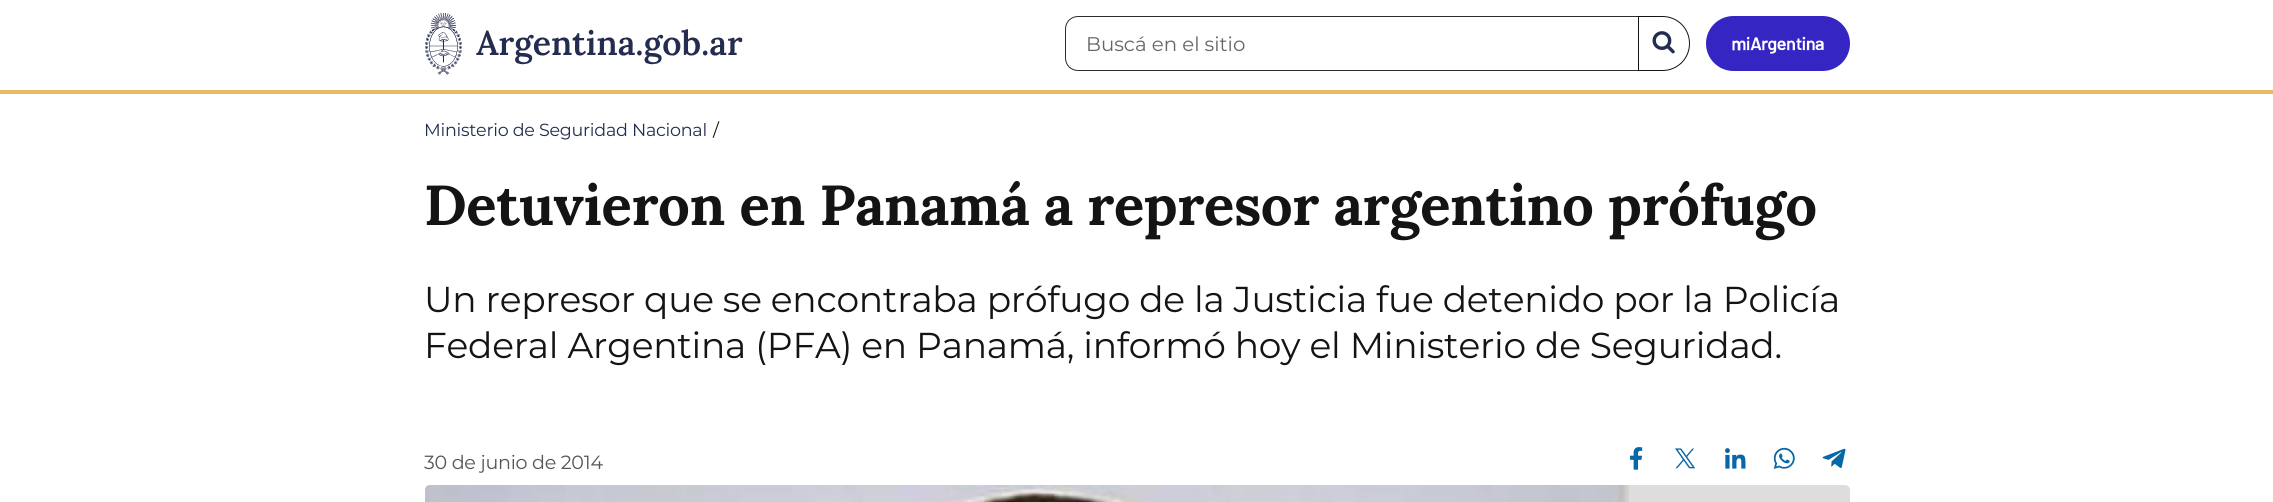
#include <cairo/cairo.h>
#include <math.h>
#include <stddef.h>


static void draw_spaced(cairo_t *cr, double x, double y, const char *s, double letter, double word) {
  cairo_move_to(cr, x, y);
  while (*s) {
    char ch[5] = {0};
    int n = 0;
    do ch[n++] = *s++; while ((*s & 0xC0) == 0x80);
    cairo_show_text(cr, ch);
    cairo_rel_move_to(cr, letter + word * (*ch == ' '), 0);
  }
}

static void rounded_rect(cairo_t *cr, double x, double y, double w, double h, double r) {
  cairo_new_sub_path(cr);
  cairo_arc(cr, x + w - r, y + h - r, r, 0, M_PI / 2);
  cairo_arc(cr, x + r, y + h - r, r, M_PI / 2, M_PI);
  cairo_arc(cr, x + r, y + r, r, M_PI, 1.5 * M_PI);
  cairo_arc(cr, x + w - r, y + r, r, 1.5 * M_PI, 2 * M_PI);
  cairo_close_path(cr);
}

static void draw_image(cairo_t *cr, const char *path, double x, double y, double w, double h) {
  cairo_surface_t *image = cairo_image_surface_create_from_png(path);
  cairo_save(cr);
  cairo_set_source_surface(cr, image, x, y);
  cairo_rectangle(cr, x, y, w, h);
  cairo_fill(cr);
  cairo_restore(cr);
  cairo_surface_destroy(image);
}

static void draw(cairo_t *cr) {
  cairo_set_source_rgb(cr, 1, 1, 1);
  cairo_paint(cr);
  cairo_set_source_rgb(cr, 231 / 255.0, 186 / 255.0, 97 / 255.0);
  cairo_rectangle(cr, 0, 90, 2273, 4);
  cairo_fill(cr);
  draw_image(cr, "images/1.png", 425, 13, 318, 62);
  cairo_new_path(cr);
  cairo_move_to(cr, 1078, 16.5);
  cairo_line_to(cr, 1638.5, 16.5);
  cairo_line_to(cr, 1638.5, 70.5);
  cairo_line_to(cr, 1078, 70.5);
  cairo_curve_to(cr, 1071, 70.5, 1065.5, 65, 1065.5, 58);
  cairo_line_to(cr, 1065.5, 29);
  cairo_curve_to(cr, 1065.5, 22, 1071, 16.5, 1078, 16.5);
  cairo_close_path(cr);
  cairo_set_source_rgb(cr, 44 / 255.0, 44 / 255.0, 44 / 255.0);
  cairo_set_line_width(cr, 1);
  cairo_stroke(cr);
  cairo_set_source_rgb(cr, 1, 1, 1);
  cairo_new_path(cr);
  cairo_move_to(cr, 1638.5, 16.5);
  cairo_line_to(cr, 1662.5, 16.5);
  cairo_curve_to(cr, 1677.5, 16.5, 1689.5, 28.5, 1689.5, 43.5);
  cairo_curve_to(cr, 1689.5, 58.5, 1677.5, 70.5, 1662.5, 70.5);
  cairo_line_to(cr, 1638.5, 70.5);
  cairo_close_path(cr);
  cairo_fill_preserve(cr);
  cairo_set_source_rgb(cr, 20 / 255.0, 20 / 255.0, 20 / 255.0);
  cairo_stroke(cr);
  draw_image(cr, "images/2.png", 1652, 31, 23, 23);
  cairo_set_source_rgb(cr, 53 / 255.0, 38 / 255.0, 195 / 255.0);
  rounded_rect(cr, 1706, 16, 144, 55, 27.5);
  cairo_fill(cr);
  draw_image(cr, "images/3.png", 1732, 36, 92, 18);
  draw_image(cr, "images/4.png", 1630, 447, 13, 23);
  draw_image(cr, "images/5.png", 1675, 448, 21, 21);
  draw_image(cr, "images/6.png", 1725, 448, 21, 21);
  draw_image(cr, "images/7.png", 1773, 447, 22, 22);
  draw_image(cr, "images/8.png", 1822, 448, 24, 20);
  cairo_set_source_rgb(cr, 221 / 255.0, 221 / 255.0, 221 / 255.0);
  rounded_rect(cr, 425, 485, 1425, 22, 5);
  cairo_fill(cr);
  draw_image(cr, "images/9.png", 425, 485, 1204, 17);
  cairo_select_font_face(cr, "Montserrat", CAIRO_FONT_SLANT_NORMAL, CAIRO_FONT_WEIGHT_NORMAL);
  cairo_set_font_size(cr, 19.75);
  cairo_set_source_rgb(cr, 102 / 255.0, 102 / 255.0, 102 / 255.0);
  cairo_move_to(cr, 1086, 51);
  cairo_show_text(cr, "Buscá en el sitio");
  cairo_set_font_size(cr, 17.5);
  cairo_set_source_rgb(cr, 35 / 255.0, 45 / 255.0, 79 / 255.0);
  draw_spaced(cr, 424, 136, "Ministerio de Seguridad Nacional", -0.25, 0);
  cairo_set_source_rgb(cr, 20 / 255.0, 20 / 255.0, 20 / 255.0);
  draw_spaced(cr, 713, 136, "/", -0.25, 0);
  cairo_select_font_face(cr, "Lora", CAIRO_FONT_SLANT_NORMAL, CAIRO_FONT_WEIGHT_BOLD);
  cairo_set_font_size(cr, 56.25);
  draw_spaced(cr, 424, 225, "Detuvieron en Panamá a represor argentino prófugo", -0.35, 0);
  cairo_select_font_face(cr, "Montserrat", CAIRO_FONT_SLANT_NORMAL, CAIRO_FONT_WEIGHT_NORMAL);
  cairo_set_font_size(cr, 36);
  draw_spaced(cr, 424, 312, "Un represor que se encontraba prófugo de la Justicia fue detenido por la Policía", -0.25, 0);
  draw_spaced(cr, 424, 358, "Federal Argentina (PFA) en Panamá, informó hoy el Ministerio de Seguridad.", -0.25, 0);
  cairo_set_font_size(cr, 19.1);
  cairo_set_source_rgb(cr, 85 / 255.0, 85 / 255.0, 85 / 255.0);
  draw_spaced(cr, 424, 469, "30 de junio de 2014", -0.25, 0);
}

int main(void) {
  cairo_surface_t *surface = cairo_image_surface_create(CAIRO_FORMAT_RGB24, 2273, 502);
  cairo_t *cr = cairo_create(surface);
  cairo_font_options_t *options = cairo_font_options_create();
  cairo_font_options_set_hint_metrics(options, CAIRO_HINT_METRICS_OFF);
  cairo_font_options_set_hint_style(options, CAIRO_HINT_STYLE_NONE);
  cairo_set_font_options(cr, options);
  cairo_set_miter_limit(cr, 4);
  draw(cr);
  cairo_surface_write_to_png(surface, "out.png");
  cairo_font_options_destroy(options);
  cairo_destroy(cr);
  cairo_surface_destroy(surface);
  return 0;
}
